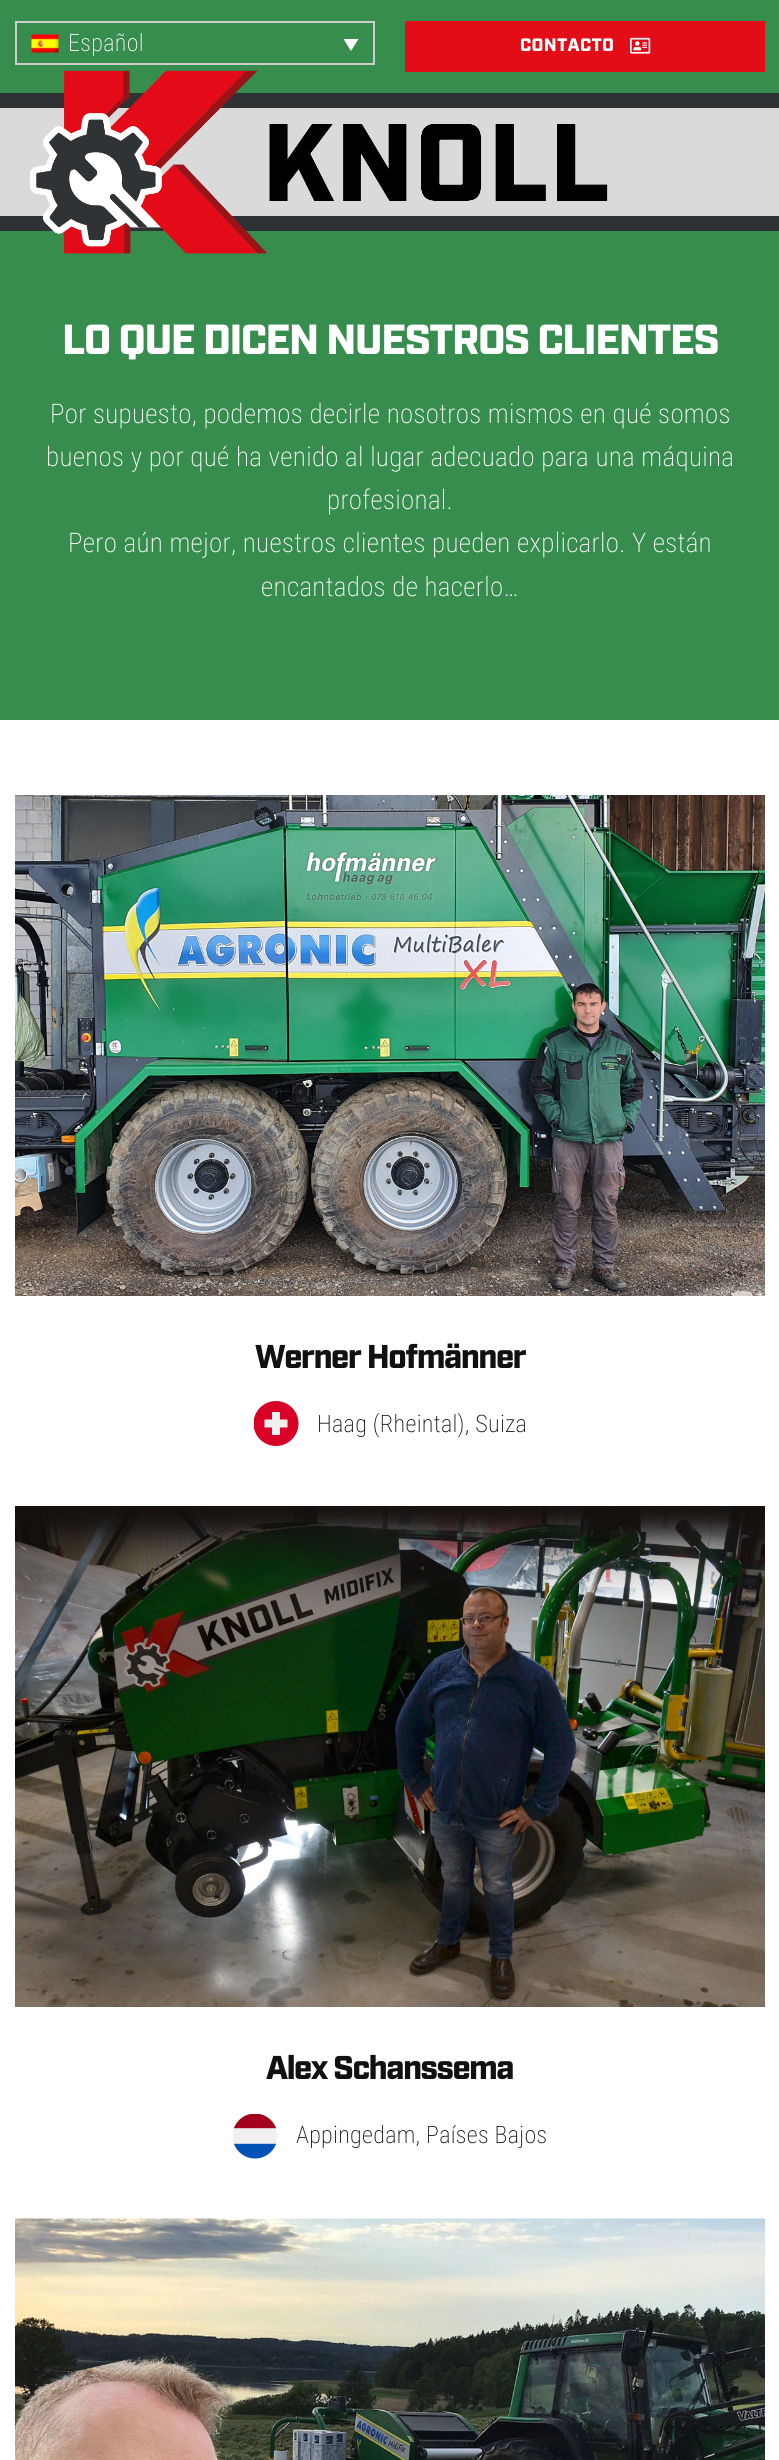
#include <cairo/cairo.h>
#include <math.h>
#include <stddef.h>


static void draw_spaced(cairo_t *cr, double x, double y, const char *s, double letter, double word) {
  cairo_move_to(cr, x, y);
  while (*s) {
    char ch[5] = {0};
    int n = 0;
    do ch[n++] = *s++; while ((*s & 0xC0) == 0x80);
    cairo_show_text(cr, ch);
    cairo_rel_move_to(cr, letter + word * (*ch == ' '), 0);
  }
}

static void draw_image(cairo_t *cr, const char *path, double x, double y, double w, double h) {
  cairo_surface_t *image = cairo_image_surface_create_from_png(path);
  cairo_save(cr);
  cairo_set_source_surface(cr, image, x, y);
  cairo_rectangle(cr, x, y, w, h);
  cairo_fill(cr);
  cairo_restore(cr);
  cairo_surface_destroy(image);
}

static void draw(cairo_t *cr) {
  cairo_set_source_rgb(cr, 1, 1, 1);
  cairo_paint(cr);
  cairo_set_source_rgb(cr, 55 / 255.0, 141 / 255.0, 78 / 255.0);
  cairo_rectangle(cr, 0, 0, 779, 93);
  cairo_fill(cr);
  cairo_rectangle(cr, 16, 22, 358, 42);
  cairo_set_source_rgb(cr, 205 / 255.0, 205 / 255.0, 205 / 255.0);
  cairo_stroke(cr);
  draw_image(cr, "images/1.png", 31, 34, 28, 19);
  cairo_set_source_rgb(cr, 1, 1, 1);
  cairo_new_path(cr);
  cairo_move_to(cr, 343.5, 39);
  cairo_line_to(cr, 358.5, 39);
  cairo_line_to(cr, 351, 51);
  cairo_close_path(cr);
  cairo_fill(cr);
  cairo_set_source_rgb(cr, 227 / 255.0, 13 / 255.0, 24 / 255.0);
  cairo_rectangle(cr, 405, 21, 360, 51);
  cairo_fill(cr);
  draw_image(cr, "images/2.png", 630, 37, 21, 17);
  cairo_set_source_rgb(cr, 218 / 255.0, 218 / 255.0, 218 / 255.0);
  cairo_rectangle(cr, 0, 108, 779, 108);
  cairo_fill(cr);
  cairo_set_source_rgb(cr, 47 / 255.0, 50 / 255.0, 52 / 255.0);
  cairo_rectangle(cr, 0, 93, 779, 15);
  cairo_fill(cr);
  cairo_rectangle(cr, 0, 216, 779, 15);
  cairo_fill(cr);
  cairo_set_source_rgb(cr, 55 / 255.0, 141 / 255.0, 78 / 255.0);
  cairo_rectangle(cr, 0, 231, 779, 489);
  cairo_fill(cr);
  draw_image(cr, "images/3.png", 30, 70, 578, 184);
  draw_image(cr, "images/4.png", 15, 795, 750, 501);
  cairo_save(cr);
  cairo_rectangle(cr, 254, 1401, 45, 45);
  cairo_clip(cr);
  cairo_set_source_rgb(cr, 216 / 255.0, 0, 39 / 255.0);
  cairo_arc(cr, 276, 1423.5, 22.5, 0, 2 * M_PI);
  cairo_fill(cr);
  cairo_restore(cr);
  cairo_set_source_rgb(cr, 240 / 255.0, 240 / 255.0, 240 / 255.0);
  cairo_new_path(cr);
  cairo_move_to(cr, 287.5, 1419.5);
  cairo_line_to(cr, 280, 1419.5);
  cairo_line_to(cr, 280, 1412);
  cairo_line_to(cr, 272, 1412);
  cairo_line_to(cr, 272, 1419.5);
  cairo_line_to(cr, 264.5, 1419.5);
  cairo_line_to(cr, 264.5, 1427.5);
  cairo_line_to(cr, 272, 1427.5);
  cairo_line_to(cr, 272, 1435);
  cairo_line_to(cr, 280, 1435);
  cairo_line_to(cr, 280, 1427.5);
  cairo_line_to(cr, 287.5, 1427.5);
  cairo_close_path(cr);
  cairo_fill(cr);
  draw_image(cr, "images/5.png", 15, 1506, 750, 501);
  draw_image(cr, "images/6.png", 233, 2114, 45, 45);
  draw_image(cr, "images/7.png", 15, 2218, 750, 242);
  cairo_select_font_face(cr, "Roboto Condensed ExtraLight", CAIRO_FONT_SLANT_NORMAL, CAIRO_FONT_WEIGHT_NORMAL);
  cairo_set_font_size(cr, 24);
  cairo_set_source_rgb(cr, 1, 1, 1);
  draw_spaced(cr, 68, 51, "Español", 0.3, 0);
  cairo_select_font_face(cr, "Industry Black", CAIRO_FONT_SLANT_NORMAL, CAIRO_FONT_WEIGHT_NORMAL);
  cairo_set_font_size(cr, 18);
  draw_spaced(cr, 520, 51, "CONTACTO", 0.3, 0);
  cairo_set_font_size(cr, 42);
  draw_spaced(cr, 62, 354, "LO QUE DICEN NUESTROS CLIENTES", -1.5, 0);
  cairo_select_font_face(cr, "Roboto Condensed ExtraLight", CAIRO_FONT_SLANT_NORMAL, CAIRO_FONT_WEIGHT_NORMAL);
  cairo_set_font_size(cr, 27);
  draw_spaced(cr, 50, 423, "Por supuesto, podemos decirle nosotros mismos en qué somos", 0.3, 0);
  draw_spaced(cr, 46, 466, "buenos y por qué ha venido al lugar adecuado para una máquina", 0.3, 0);
  draw_spaced(cr, 327, 509, "profesional.", 0.3, 0);
  draw_spaced(cr, 68, 552, "Pero aún mejor, nuestros clientes pueden explicarlo. Y están", 0.3, 0);
  draw_spaced(cr, 261, 596, "encantados de hacerlo…", 0.3, 0);
  cairo_select_font_face(cr, "Industry Black", CAIRO_FONT_SLANT_NORMAL, CAIRO_FONT_WEIGHT_NORMAL);
  cairo_set_font_size(cr, 33);
  cairo_set_source_rgb(cr, 17 / 255.0, 17 / 255.0, 17 / 255.0);
  draw_spaced(cr, 255, 1368, "Werner Hofmänner", -1.5, 0);
  cairo_select_font_face(cr, "Roboto Condensed ExtraLight", CAIRO_FONT_SLANT_NORMAL, CAIRO_FONT_WEIGHT_NORMAL);
  cairo_set_font_size(cr, 24);
  draw_spaced(cr, 317, 1432, "Haag (Rheintal), Suiza", 0.3, 0);
  cairo_select_font_face(cr, "Industry Black", CAIRO_FONT_SLANT_NORMAL, CAIRO_FONT_WEIGHT_NORMAL);
  cairo_set_font_size(cr, 33);
  draw_spaced(cr, 266, 2079, "Alex Schanssema", -1.5, 0);
  cairo_select_font_face(cr, "Roboto Condensed ExtraLight", CAIRO_FONT_SLANT_NORMAL, CAIRO_FONT_WEIGHT_NORMAL);
  cairo_set_font_size(cr, 24);
  draw_spaced(cr, 296, 2143, "Appingedam, Países Bajos", 0.3, 0);
}

int main(void) {
  cairo_surface_t *surface = cairo_image_surface_create(CAIRO_FORMAT_RGB24, 779, 2460);
  cairo_t *cr = cairo_create(surface);
  cairo_font_options_t *options = cairo_font_options_create();
  cairo_font_options_set_hint_metrics(options, CAIRO_HINT_METRICS_OFF);
  cairo_font_options_set_hint_style(options, CAIRO_HINT_STYLE_NONE);
  cairo_set_font_options(cr, options);
  cairo_set_miter_limit(cr, 4);
  draw(cr);
  cairo_surface_write_to_png(surface, "out.png");
  cairo_font_options_destroy(options);
  cairo_destroy(cr);
  cairo_surface_destroy(surface);
  return 0;
}
